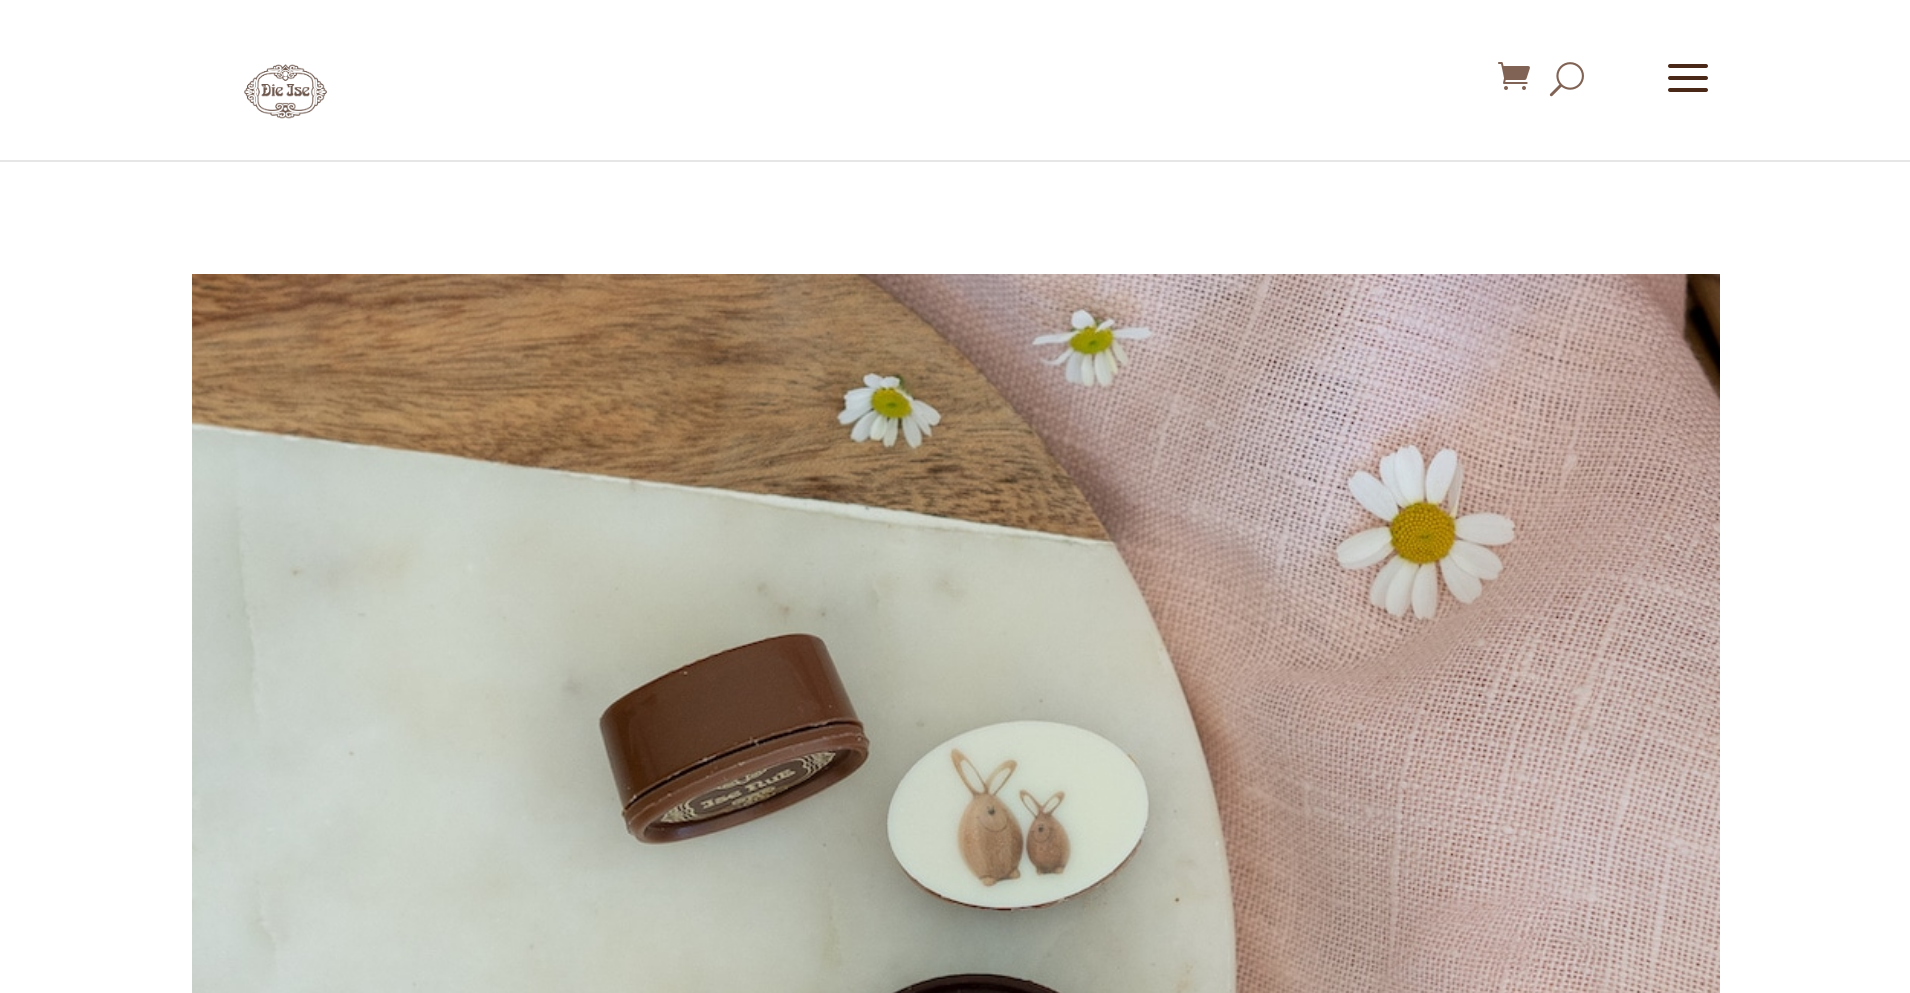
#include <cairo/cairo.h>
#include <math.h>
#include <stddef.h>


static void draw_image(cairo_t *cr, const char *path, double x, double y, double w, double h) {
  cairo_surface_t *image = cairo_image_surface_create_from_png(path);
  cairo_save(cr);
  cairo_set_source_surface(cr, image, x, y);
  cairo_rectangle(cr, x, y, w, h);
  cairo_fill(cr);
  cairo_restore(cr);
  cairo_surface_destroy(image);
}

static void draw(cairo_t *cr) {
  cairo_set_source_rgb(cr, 1, 1, 1);
  cairo_paint(cr);
  cairo_set_source_rgb(cr, 230 / 255.0, 230 / 255.0, 230 / 255.0);
  cairo_rectangle(cr, 0, 160, 1910, 2);
  cairo_fill(cr);
  draw_image(cr, "images/1.png", 244, 64, 83, 55);
  draw_image(cr, "images/2.png", 1498, 62, 32, 28);
  draw_image(cr, "images/3.png", 1549, 62, 35, 35);
  draw_image(cr, "images/4.png", 1668, 64, 40, 28);
  draw_image(cr, "images/5.png", 192, 274, 1528, 719);
}

int main(void) {
  cairo_surface_t *surface = cairo_image_surface_create(CAIRO_FORMAT_RGB24, 1910, 993);
  cairo_t *cr = cairo_create(surface);
  cairo_font_options_t *options = cairo_font_options_create();
  cairo_font_options_set_hint_metrics(options, CAIRO_HINT_METRICS_OFF);
  cairo_font_options_set_hint_style(options, CAIRO_HINT_STYLE_NONE);
  cairo_set_font_options(cr, options);
  cairo_set_miter_limit(cr, 4);
  draw(cr);
  cairo_surface_write_to_png(surface, "out.png");
  cairo_font_options_destroy(options);
  cairo_destroy(cr);
  cairo_surface_destroy(surface);
  return 0;
}
